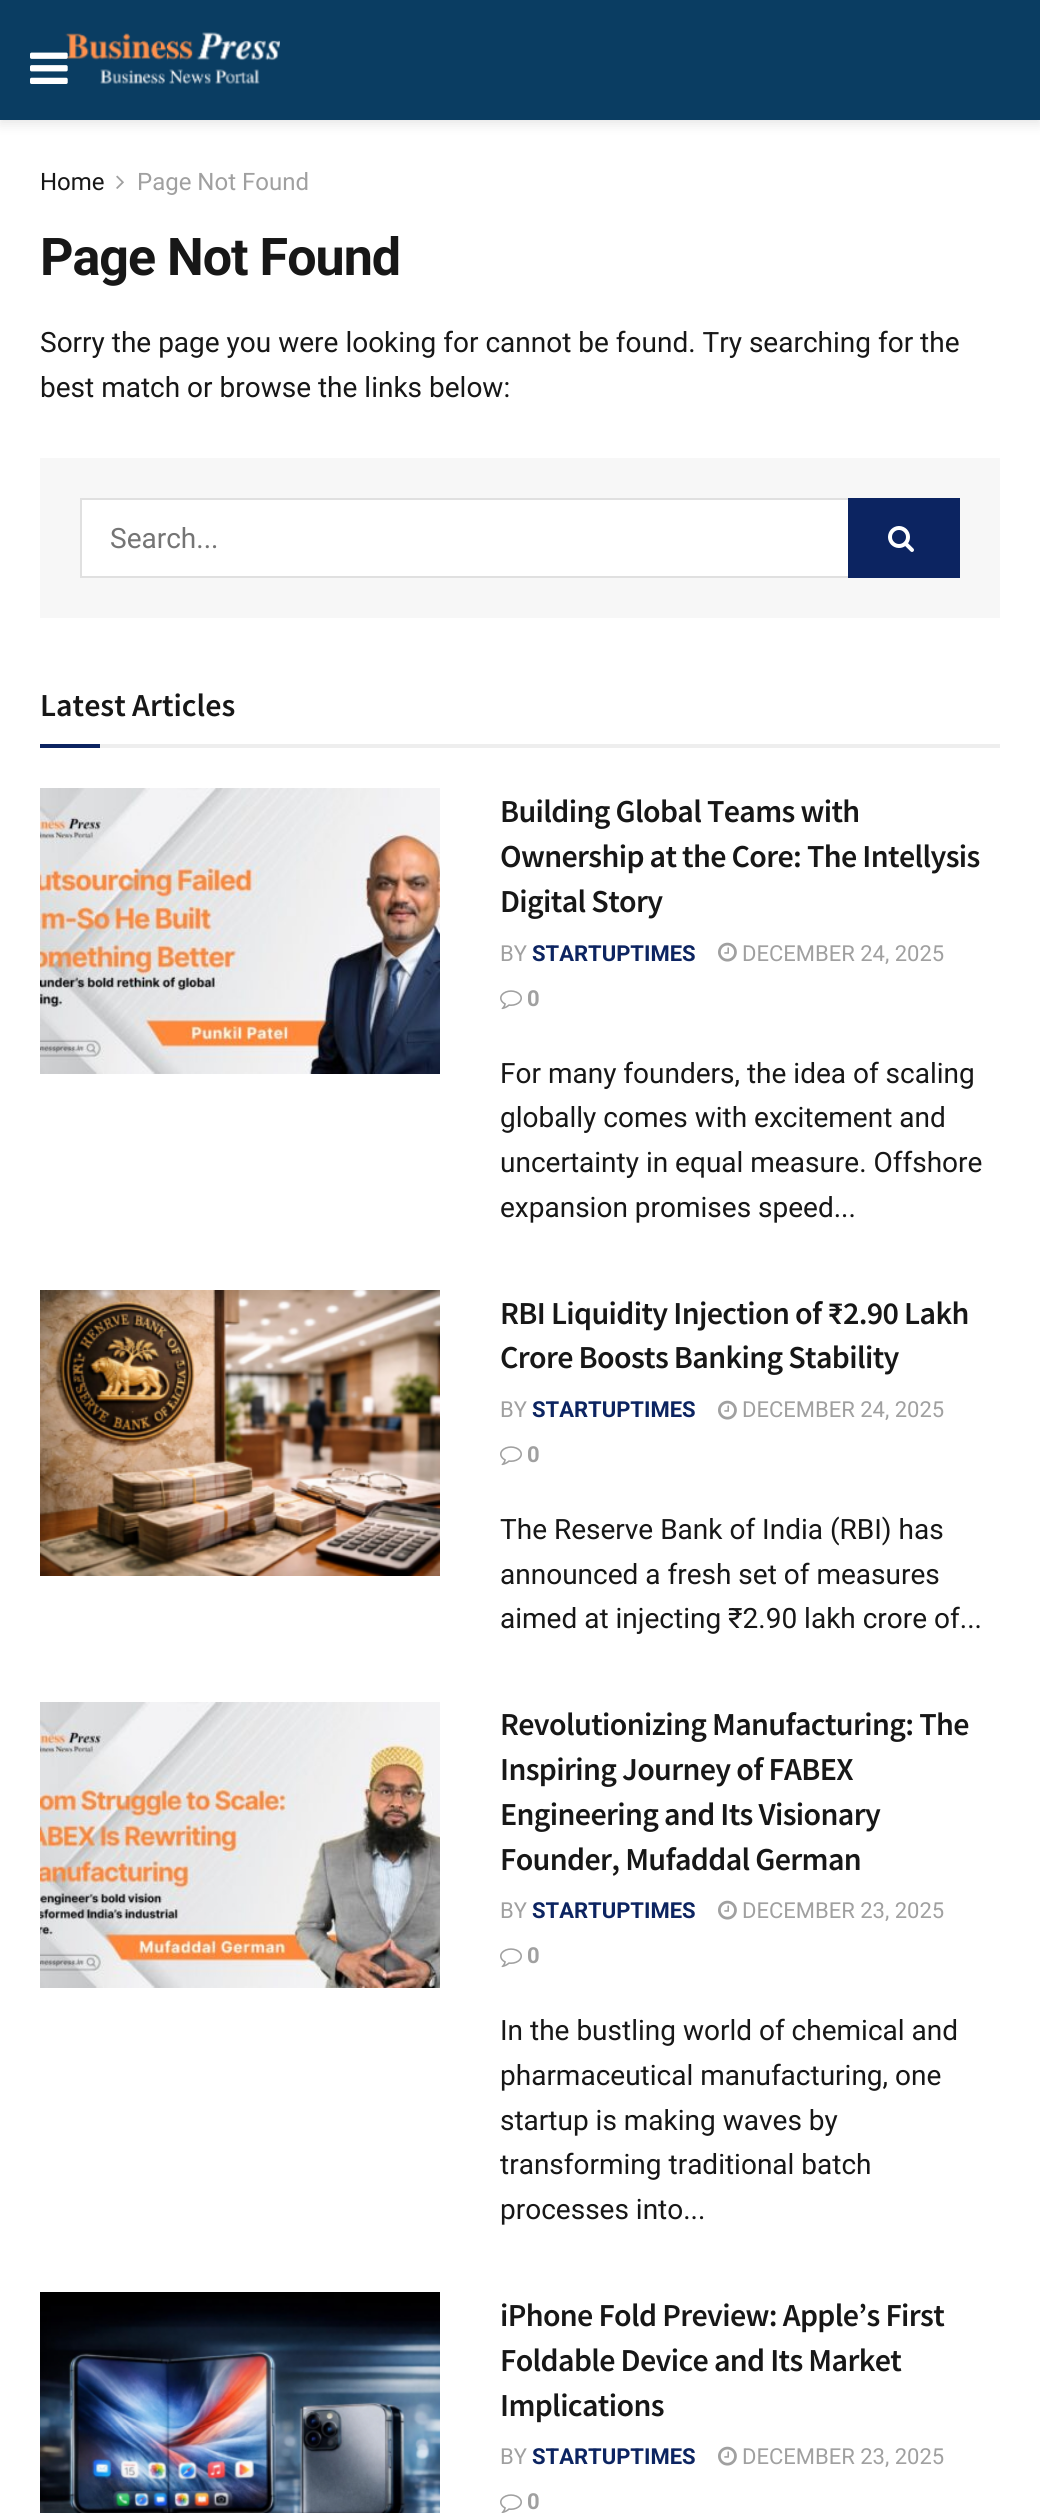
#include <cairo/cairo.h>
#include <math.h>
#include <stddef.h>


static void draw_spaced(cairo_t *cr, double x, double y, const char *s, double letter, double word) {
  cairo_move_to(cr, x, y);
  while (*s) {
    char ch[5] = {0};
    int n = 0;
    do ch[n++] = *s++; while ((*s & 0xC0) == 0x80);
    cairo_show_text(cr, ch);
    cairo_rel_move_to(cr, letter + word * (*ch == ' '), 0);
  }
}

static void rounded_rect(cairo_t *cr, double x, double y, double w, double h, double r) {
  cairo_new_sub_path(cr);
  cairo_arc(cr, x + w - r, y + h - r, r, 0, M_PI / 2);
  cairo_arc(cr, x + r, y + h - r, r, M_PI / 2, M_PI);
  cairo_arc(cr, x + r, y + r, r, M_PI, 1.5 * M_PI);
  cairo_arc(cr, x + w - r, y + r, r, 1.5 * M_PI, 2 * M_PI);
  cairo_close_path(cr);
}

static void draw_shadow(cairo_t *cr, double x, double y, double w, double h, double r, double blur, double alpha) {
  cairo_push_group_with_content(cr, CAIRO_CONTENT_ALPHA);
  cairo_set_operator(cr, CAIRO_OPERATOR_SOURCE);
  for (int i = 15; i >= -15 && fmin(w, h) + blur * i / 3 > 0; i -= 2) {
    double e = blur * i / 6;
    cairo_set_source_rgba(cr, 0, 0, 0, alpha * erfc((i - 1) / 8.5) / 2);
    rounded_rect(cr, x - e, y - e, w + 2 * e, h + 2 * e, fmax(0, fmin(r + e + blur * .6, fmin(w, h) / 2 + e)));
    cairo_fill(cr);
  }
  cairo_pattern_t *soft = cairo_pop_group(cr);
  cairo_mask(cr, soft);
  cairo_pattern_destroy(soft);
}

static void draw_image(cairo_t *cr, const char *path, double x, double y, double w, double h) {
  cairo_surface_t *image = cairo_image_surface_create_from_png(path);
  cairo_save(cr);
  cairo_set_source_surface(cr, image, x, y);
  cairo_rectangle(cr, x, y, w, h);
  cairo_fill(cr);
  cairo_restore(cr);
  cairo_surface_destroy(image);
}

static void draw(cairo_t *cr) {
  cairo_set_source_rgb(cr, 1, 1, 1);
  cairo_paint(cr);
  cairo_set_source_rgb(cr, 0, 0, 0);
  draw_shadow(cr, 0, 4, 1040, 120, 0, 6, 0.1);
  cairo_set_source_rgb(cr, 10 / 255.0, 61 / 255.0, 98 / 255.0);
  cairo_rectangle(cr, 0, 0, 1040, 120);
  cairo_fill(cr);
  draw_image(cr, "images/1.png", 65, 32, 215, 52);
  draw_image(cr, "images/2.png", 30, 52, 38, 32);
  draw_image(cr, "images/3.png", 116, 175, 8, 14);
  cairo_set_source_rgb(cr, 247 / 255.0, 247 / 255.0, 247 / 255.0);
  cairo_rectangle(cr, 40, 458, 960, 160);
  cairo_fill(cr);
  cairo_set_source_rgb(cr, 1, 1, 1);
  cairo_rectangle(cr, 82, 500, 766, 76);
  cairo_fill(cr);
  cairo_rectangle(cr, 81, 499, 878, 78);
  cairo_set_source_rgb(cr, 224 / 255.0, 224 / 255.0, 224 / 255.0);
  cairo_stroke(cr);
  cairo_set_source_rgb(cr, 12 / 255.0, 36 / 255.0, 97 / 255.0);
  cairo_rectangle(cr, 848, 498, 112, 80);
  cairo_fill(cr);
  draw_image(cr, "images/4.png", 888, 526, 26, 26);
  cairo_set_source_rgb(cr, 238 / 255.0, 238 / 255.0, 238 / 255.0);
  cairo_rectangle(cr, 100, 744, 900, 4);
  cairo_fill(cr);
  cairo_set_source_rgb(cr, 12 / 255.0, 36 / 255.0, 97 / 255.0);
  cairo_rectangle(cr, 40, 744, 60, 4);
  cairo_fill(cr);
  draw_image(cr, "images/5.png", 40, 788, 400, 286);
  draw_image(cr, "images/6.png", 718, 942, 19, 20);
  draw_image(cr, "images/7.png", 500, 990, 22, 20);
  draw_image(cr, "images/8.png", 40, 1290, 400, 286);
  draw_image(cr, "images/6.png", 718, 1400, 19, 20);
  draw_image(cr, "images/7.png", 500, 1446, 22, 20);
  draw_image(cr, "images/9.png", 40, 1702, 400, 286);
  draw_image(cr, "images/6.png", 718, 1900, 19, 20);
  draw_image(cr, "images/7.png", 500, 1948, 22, 20);
  draw_image(cr, "images/10.png", 40, 2292, 400, 221);
  draw_image(cr, "images/6.png", 718, 2446, 19, 20);
  draw_image(cr, "images/11.png", 500, 2494, 22, 19);
  cairo_select_font_face(cr, "Roboto", CAIRO_FONT_SLANT_NORMAL, CAIRO_FONT_WEIGHT_NORMAL);
  cairo_set_font_size(cr, 24);
  cairo_set_source_rgb(cr, 23 / 255.0, 23 / 255.0, 23 / 255.0);
  cairo_move_to(cr, 40, 190);
  cairo_show_text(cr, "Home");
  cairo_set_source_rgb(cr, 160 / 255.0, 160 / 255.0, 160 / 255.0);
  cairo_move_to(cr, 137, 190);
  cairo_show_text(cr, "Page Not Found");
  cairo_select_font_face(cr, "Roboto", CAIRO_FONT_SLANT_NORMAL, CAIRO_FONT_WEIGHT_BOLD);
  cairo_set_font_size(cr, 52);
  cairo_set_source_rgb(cr, 23 / 255.0, 23 / 255.0, 23 / 255.0);
  draw_spaced(cr, 40, 275, "Page Not Found", -1, 0);
  cairo_select_font_face(cr, "Roboto", CAIRO_FONT_SLANT_NORMAL, CAIRO_FONT_WEIGHT_NORMAL);
  cairo_set_font_size(cr, 28);
  cairo_move_to(cr, 40, 352);
  cairo_show_text(cr, "Sorry the page you were looking for cannot be found. Try searching for the");
  cairo_move_to(cr, 40, 397);
  cairo_show_text(cr, "best match or browse the links below:");
  cairo_set_source_rgb(cr, 117 / 255.0, 117 / 255.0, 117 / 255.0);
  cairo_move_to(cr, 110, 548);
  cairo_show_text(cr, "Search...");
  cairo_select_font_face(cr, "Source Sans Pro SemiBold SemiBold", CAIRO_FONT_SLANT_NORMAL, CAIRO_FONT_WEIGHT_NORMAL);
  cairo_set_font_size(cr, 32);
  cairo_set_source_rgb(cr, 23 / 255.0, 23 / 255.0, 23 / 255.0);
  cairo_move_to(cr, 40, 716);
  cairo_show_text(cr, "Latest Articles");
  draw_spaced(cr, 500, 822, "Building Global Teams with", -0.65, 0);
  draw_spaced(cr, 500, 867, "Ownership at the Core: The Intellysis", -0.65, 0);
  draw_spaced(cr, 500, 912, "Digital Story", -0.65, 0);
  cairo_select_font_face(cr, "Roboto", CAIRO_FONT_SLANT_NORMAL, CAIRO_FONT_WEIGHT_NORMAL);
  cairo_set_font_size(cr, 22);
  cairo_set_source_rgb(cr, 160 / 255.0, 160 / 255.0, 160 / 255.0);
  cairo_move_to(cr, 500, 961);
  cairo_show_text(cr, "BY");
  cairo_select_font_face(cr, "Roboto", CAIRO_FONT_SLANT_NORMAL, CAIRO_FONT_WEIGHT_BOLD);
  cairo_set_source_rgb(cr, 12 / 255.0, 36 / 255.0, 97 / 255.0);
  cairo_move_to(cr, 532, 961);
  cairo_show_text(cr, "STARTUPTIMES");
  cairo_select_font_face(cr, "Roboto", CAIRO_FONT_SLANT_NORMAL, CAIRO_FONT_WEIGHT_NORMAL);
  cairo_set_source_rgb(cr, 160 / 255.0, 160 / 255.0, 160 / 255.0);
  cairo_move_to(cr, 742, 961);
  cairo_show_text(cr, "DECEMBER 24, 2025");
  cairo_select_font_face(cr, "Roboto", CAIRO_FONT_SLANT_NORMAL, CAIRO_FONT_WEIGHT_BOLD);
  cairo_move_to(cr, 527, 1006);
  cairo_show_text(cr, "0");
  cairo_select_font_face(cr, "Roboto", CAIRO_FONT_SLANT_NORMAL, CAIRO_FONT_WEIGHT_NORMAL);
  cairo_set_font_size(cr, 28);
  cairo_set_source_rgb(cr, 23 / 255.0, 23 / 255.0, 23 / 255.0);
  cairo_move_to(cr, 500, 1083);
  cairo_show_text(cr, "For many founders, the idea of scaling");
  cairo_move_to(cr, 500, 1127);
  cairo_show_text(cr, "globally comes with excitement and");
  cairo_move_to(cr, 500, 1172);
  cairo_show_text(cr, "uncertainty in equal measure. Offshore");
  cairo_move_to(cr, 500, 1217);
  cairo_show_text(cr, "expansion promises speed...");
  cairo_select_font_face(cr, "Source Sans Pro SemiBold SemiBold", CAIRO_FONT_SLANT_NORMAL, CAIRO_FONT_WEIGHT_NORMAL);
  cairo_set_font_size(cr, 32);
  draw_spaced(cr, 500, 1324, "RBI Liquidity Injection of ₹2.90 Lakh", -0.65, 0);
  draw_spaced(cr, 500, 1368, "Crore Boosts Banking Stability", -0.65, 0);
  cairo_select_font_face(cr, "Roboto", CAIRO_FONT_SLANT_NORMAL, CAIRO_FONT_WEIGHT_NORMAL);
  cairo_set_font_size(cr, 22);
  cairo_set_source_rgb(cr, 160 / 255.0, 160 / 255.0, 160 / 255.0);
  cairo_move_to(cr, 500, 1417);
  cairo_show_text(cr, "BY");
  cairo_select_font_face(cr, "Roboto", CAIRO_FONT_SLANT_NORMAL, CAIRO_FONT_WEIGHT_BOLD);
  cairo_set_source_rgb(cr, 12 / 255.0, 36 / 255.0, 97 / 255.0);
  cairo_move_to(cr, 532, 1417);
  cairo_show_text(cr, "STARTUPTIMES");
  cairo_select_font_face(cr, "Roboto", CAIRO_FONT_SLANT_NORMAL, CAIRO_FONT_WEIGHT_NORMAL);
  cairo_set_source_rgb(cr, 160 / 255.0, 160 / 255.0, 160 / 255.0);
  cairo_move_to(cr, 742, 1417);
  cairo_show_text(cr, "DECEMBER 24, 2025");
  cairo_select_font_face(cr, "Roboto", CAIRO_FONT_SLANT_NORMAL, CAIRO_FONT_WEIGHT_BOLD);
  cairo_move_to(cr, 527, 1462);
  cairo_show_text(cr, "0");
  cairo_select_font_face(cr, "Roboto", CAIRO_FONT_SLANT_NORMAL, CAIRO_FONT_WEIGHT_NORMAL);
  cairo_set_font_size(cr, 28);
  cairo_set_source_rgb(cr, 23 / 255.0, 23 / 255.0, 23 / 255.0);
  cairo_move_to(cr, 500, 1539);
  cairo_show_text(cr, "The Reserve Bank of India (RBI) has");
  cairo_move_to(cr, 500, 1584);
  cairo_show_text(cr, "announced a fresh set of measures");
  cairo_move_to(cr, 500, 1628);
  cairo_show_text(cr, "aimed at injecting ₹2.90 lakh crore of...");
  cairo_select_font_face(cr, "Source Sans Pro SemiBold SemiBold", CAIRO_FONT_SLANT_NORMAL, CAIRO_FONT_WEIGHT_NORMAL);
  cairo_set_font_size(cr, 32);
  draw_spaced(cr, 500, 1735, "Revolutionizing Manufacturing: The", -0.65, 0);
  draw_spaced(cr, 500, 1780, "Inspiring Journey of FABEX", -0.65, 0);
  draw_spaced(cr, 500, 1825, "Engineering and Its Visionary", -0.65, 0);
  draw_spaced(cr, 500, 1870, "Founder, Mufaddal German", -0.65, 0);
  cairo_select_font_face(cr, "Roboto", CAIRO_FONT_SLANT_NORMAL, CAIRO_FONT_WEIGHT_NORMAL);
  cairo_set_font_size(cr, 22);
  cairo_set_source_rgb(cr, 160 / 255.0, 160 / 255.0, 160 / 255.0);
  cairo_move_to(cr, 500, 1918);
  cairo_show_text(cr, "BY");
  cairo_select_font_face(cr, "Roboto", CAIRO_FONT_SLANT_NORMAL, CAIRO_FONT_WEIGHT_BOLD);
  cairo_set_source_rgb(cr, 12 / 255.0, 36 / 255.0, 97 / 255.0);
  cairo_move_to(cr, 532, 1918);
  cairo_show_text(cr, "STARTUPTIMES");
  cairo_select_font_face(cr, "Roboto", CAIRO_FONT_SLANT_NORMAL, CAIRO_FONT_WEIGHT_NORMAL);
  cairo_set_source_rgb(cr, 160 / 255.0, 160 / 255.0, 160 / 255.0);
  cairo_move_to(cr, 742, 1918);
  cairo_show_text(cr, "DECEMBER 23, 2025");
  cairo_select_font_face(cr, "Roboto", CAIRO_FONT_SLANT_NORMAL, CAIRO_FONT_WEIGHT_BOLD);
  cairo_move_to(cr, 527, 1963);
  cairo_show_text(cr, "0");
  cairo_select_font_face(cr, "Roboto", CAIRO_FONT_SLANT_NORMAL, CAIRO_FONT_WEIGHT_NORMAL);
  cairo_set_font_size(cr, 28);
  cairo_set_source_rgb(cr, 23 / 255.0, 23 / 255.0, 23 / 255.0);
  cairo_move_to(cr, 500, 2040);
  cairo_show_text(cr, "In the bustling world of chemical and");
  cairo_move_to(cr, 500, 2085);
  cairo_show_text(cr, "pharmaceutical manufacturing, one");
  cairo_move_to(cr, 500, 2130);
  cairo_show_text(cr, "startup is making waves by");
  cairo_move_to(cr, 500, 2174);
  cairo_show_text(cr, "transforming traditional batch");
  cairo_move_to(cr, 500, 2219);
  cairo_show_text(cr, "processes into...");
  cairo_select_font_face(cr, "Source Sans Pro SemiBold SemiBold", CAIRO_FONT_SLANT_NORMAL, CAIRO_FONT_WEIGHT_NORMAL);
  cairo_set_font_size(cr, 32);
  draw_spaced(cr, 500, 2326, "iPhone Fold Preview: Apple’s First", -0.65, 0);
  draw_spaced(cr, 500, 2371, "Foldable Device and Its Market", -0.65, 0);
  draw_spaced(cr, 500, 2416, "Implications", -0.65, 0);
  cairo_select_font_face(cr, "Roboto", CAIRO_FONT_SLANT_NORMAL, CAIRO_FONT_WEIGHT_NORMAL);
  cairo_set_font_size(cr, 22);
  cairo_set_source_rgb(cr, 160 / 255.0, 160 / 255.0, 160 / 255.0);
  cairo_move_to(cr, 500, 2464);
  cairo_show_text(cr, "BY");
  cairo_select_font_face(cr, "Roboto", CAIRO_FONT_SLANT_NORMAL, CAIRO_FONT_WEIGHT_BOLD);
  cairo_set_source_rgb(cr, 12 / 255.0, 36 / 255.0, 97 / 255.0);
  cairo_move_to(cr, 532, 2464);
  cairo_show_text(cr, "STARTUPTIMES");
  cairo_select_font_face(cr, "Roboto", CAIRO_FONT_SLANT_NORMAL, CAIRO_FONT_WEIGHT_NORMAL);
  cairo_set_source_rgb(cr, 160 / 255.0, 160 / 255.0, 160 / 255.0);
  cairo_move_to(cr, 742, 2464);
  cairo_show_text(cr, "DECEMBER 23, 2025");
  cairo_select_font_face(cr, "Roboto", CAIRO_FONT_SLANT_NORMAL, CAIRO_FONT_WEIGHT_BOLD);
  cairo_move_to(cr, 527, 2509);
  cairo_show_text(cr, "0");
}

int main(void) {
  cairo_surface_t *surface = cairo_image_surface_create(CAIRO_FORMAT_RGB24, 1040, 2513);
  cairo_t *cr = cairo_create(surface);
  cairo_font_options_t *options = cairo_font_options_create();
  cairo_font_options_set_hint_metrics(options, CAIRO_HINT_METRICS_OFF);
  cairo_font_options_set_hint_style(options, CAIRO_HINT_STYLE_NONE);
  cairo_set_font_options(cr, options);
  cairo_set_miter_limit(cr, 4);
  draw(cr);
  cairo_surface_write_to_png(surface, "out.png");
  cairo_font_options_destroy(options);
  cairo_destroy(cr);
  cairo_surface_destroy(surface);
  return 0;
}
